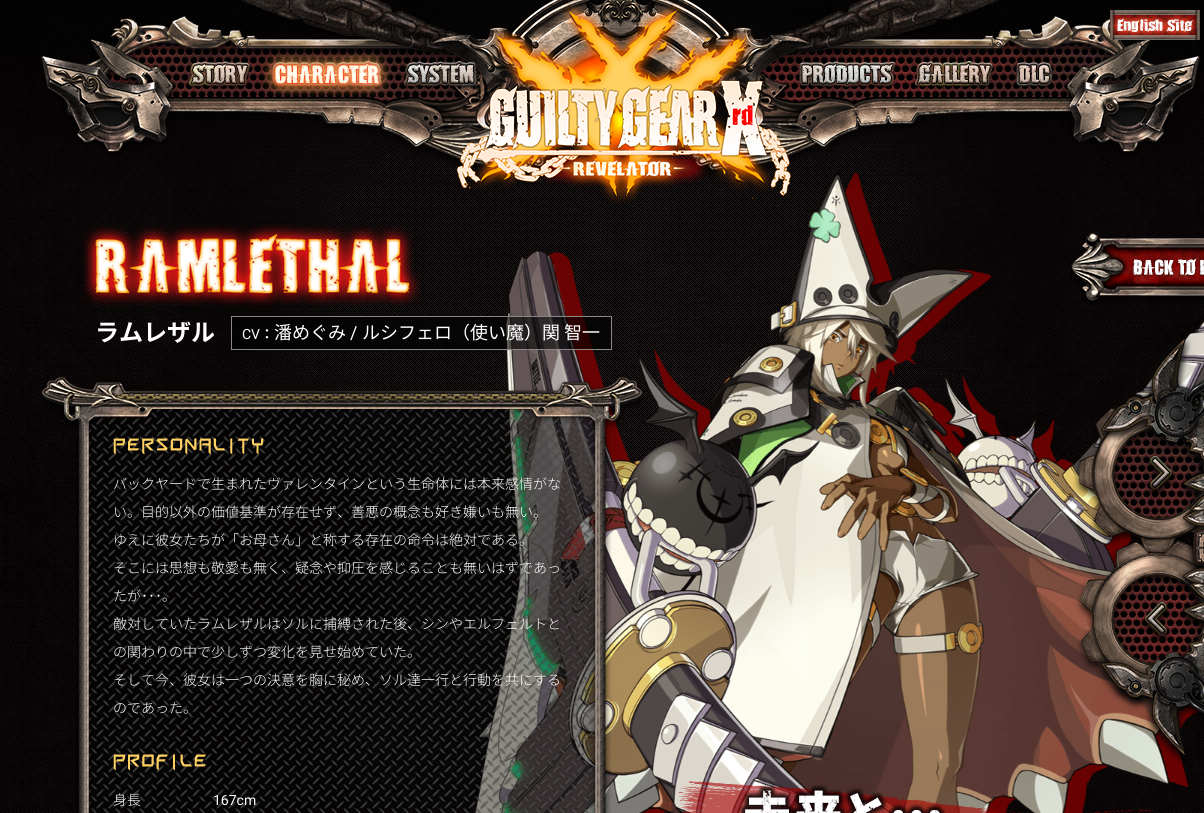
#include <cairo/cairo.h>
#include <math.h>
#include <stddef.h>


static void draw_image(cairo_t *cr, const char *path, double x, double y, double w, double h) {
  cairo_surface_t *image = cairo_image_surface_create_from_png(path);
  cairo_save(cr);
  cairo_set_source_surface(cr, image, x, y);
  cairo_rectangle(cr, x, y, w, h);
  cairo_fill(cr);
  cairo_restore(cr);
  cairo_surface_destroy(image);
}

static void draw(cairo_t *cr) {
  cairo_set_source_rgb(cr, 1, 1, 1);
  cairo_paint(cr);
  draw_image(cr, "images/1.png", 0, 0, 1204, 813);
  draw_image(cr, "images/2.png", 0, 0, 1204, 813);
  draw_image(cr, "images/18.png", 474, 171, 730, 642);
  draw_image(cr, "images/3.png", 0, 0, 1204, 188);
  draw_image(cr, "images/15.png", 67, 103, 87, 53);
  draw_image(cr, "images/16.png", 1087, 105, 86, 51);
  draw_image(cr, "images/4.png", 81, 0, 1079, 177);
  draw_image(cr, "images/5.png", 41, 39, 1159, 107);
  draw_image(cr, "images/7.png", 533, 42, 173, 108);
  draw_image(cr, "images/6.png", 457, 3, 334, 200);
  draw_image(cr, "images/8.png", 188, 61, 63, 28);
  draw_image(cr, "images/9.png", 271, 60, 112, 29);
  draw_image(cr, "images/10.png", 262, 52, 129, 44);
  draw_image(cr, "images/11.png", 403, 60, 76, 29);
  draw_image(cr, "images/12.png", 798, 61, 99, 29);
  draw_image(cr, "images/13.png", 914, 60, 81, 29);
  draw_image(cr, "images/14.png", 1015, 62, 39, 27);
  draw_image(cr, "images/17.png", 1110, 10, 90, 30);
  draw_image(cr, "images/19.png", 678, 781, 476, 32);
  draw_image(cr, "images/20.png", 83, 224, 338, 82);
  cairo_set_source_rgba(cr, 0, 0, 0, 0.6);
  cairo_rectangle(cr, 231.5, 316.5, 380, 33);
  cairo_fill_preserve(cr);
  cairo_set_source_rgb(cr, 136 / 255.0, 136 / 255.0, 136 / 255.0);
  cairo_set_line_width(cr, 1);
  cairo_stroke(cr);
  draw_image(cr, "images/21.png", 41, 376, 604, 60);
  draw_image(cr, "images/22.png", 76, 436, 536, 377);
  draw_image(cr, "images/23.png", 113, 438, 151, 17);
  draw_image(cr, "images/24.png", 113, 754, 93, 17);
  draw_image(cr, "images/25.png", 1070, 233, 134, 73);
  draw_image(cr, "images/27.png", 1114, 429, 90, 89);
  draw_image(cr, "images/29.png", 1145, 455, 32, 44);
  draw_image(cr, "images/28.png", 1073, 391, 131, 163);
  draw_image(cr, "images/30.png", 1113, 574, 90, 90);
  draw_image(cr, "images/32.png", 1140, 601, 32, 45);
  draw_image(cr, "images/31.png", 1075, 540, 129, 166);
  draw_image(cr, "images/26.png", 1096, 336, 108, 428);
  cairo_select_font_face(cr, "Noto Sans JP", CAIRO_FONT_SLANT_NORMAL, CAIRO_FONT_WEIGHT_BOLD);
  cairo_set_font_size(cr, 24);
  cairo_set_source_rgb(cr, 1, 1, 1);
  cairo_move_to(cr, 95, 341);
  cairo_show_text(cr, "ラムレザル");
  cairo_select_font_face(cr, "Roboto", CAIRO_FONT_SLANT_NORMAL, CAIRO_FONT_WEIGHT_NORMAL);
  cairo_set_font_size(cr, 14);
  cairo_move_to(cr, 242, 339);
  cairo_show_text(cr, "CV");
  cairo_select_font_face(cr, "Noto Sans JP Medium", CAIRO_FONT_SLANT_NORMAL, CAIRO_FONT_WEIGHT_NORMAL);
  cairo_move_to(cr, 260, 339);
  cairo_show_text(cr, "：");
  cairo_select_font_face(cr, "Noto Sans JP", CAIRO_FONT_SLANT_NORMAL, CAIRO_FONT_WEIGHT_NORMAL);
  cairo_set_font_size(cr, 18);
  cairo_move_to(cr, 274, 339);
  cairo_show_text(cr, "潘めぐみ");
  cairo_select_font_face(cr, "Roboto", CAIRO_FONT_SLANT_NORMAL, CAIRO_FONT_WEIGHT_NORMAL);
  cairo_move_to(cr, 350, 339);
  cairo_show_text(cr, "/");
  cairo_select_font_face(cr, "Noto Sans JP", CAIRO_FONT_SLANT_NORMAL, CAIRO_FONT_WEIGHT_NORMAL);
  cairo_move_to(cr, 362, 339);
  cairo_show_text(cr, "ルシフェロ（使い魔）関 智一");
  cairo_select_font_face(cr, "Noto Sans JP Light", CAIRO_FONT_SLANT_NORMAL, CAIRO_FONT_WEIGHT_NORMAL);
  cairo_set_font_size(cr, 14);
  cairo_move_to(cr, 113, 489);
  cairo_show_text(cr, "バックヤードで生まれたヴァレンタインという生命体には本来感情がな");
  cairo_move_to(cr, 113, 517);
  cairo_show_text(cr, "い。目的以外の価値基準が存在せず、善悪の概念も好き嫌いも無い。");
  cairo_move_to(cr, 113, 545);
  cairo_show_text(cr, "ゆえに彼女たちが「お母さん」と称する存在の命令は絶対である。");
  cairo_move_to(cr, 113, 573);
  cairo_show_text(cr, "そこには思想も敬愛も無く、疑念や抑圧を感じることも無いはずであっ");
  cairo_move_to(cr, 113, 601);
  cairo_show_text(cr, "たが･･･。");
  cairo_move_to(cr, 113, 629);
  cairo_show_text(cr, "敵対していたラムレザルはソルに捕縛された後、シンやエルフェルトと");
  cairo_move_to(cr, 113, 657);
  cairo_show_text(cr, "の関わりの中で少しずつ変化を見せ始めていた。");
  cairo_move_to(cr, 113, 685);
  cairo_show_text(cr, "そして今、彼女は一つの決意を胸に秘め、ソル達一行と行動を共にする");
  cairo_move_to(cr, 113, 713);
  cairo_show_text(cr, "のであった。");
  cairo_move_to(cr, 113, 805);
  cairo_show_text(cr, "身長");
  cairo_select_font_face(cr, "Roboto", CAIRO_FONT_SLANT_NORMAL, CAIRO_FONT_WEIGHT_NORMAL);
  cairo_move_to(cr, 213, 805);
  cairo_show_text(cr, "167cm");
}

int main(void) {
  cairo_surface_t *surface = cairo_image_surface_create(CAIRO_FORMAT_RGB24, 1204, 813);
  cairo_t *cr = cairo_create(surface);
  cairo_font_options_t *options = cairo_font_options_create();
  cairo_font_options_set_hint_metrics(options, CAIRO_HINT_METRICS_OFF);
  cairo_font_options_set_hint_style(options, CAIRO_HINT_STYLE_NONE);
  cairo_set_font_options(cr, options);
  cairo_set_miter_limit(cr, 4);
  draw(cr);
  cairo_surface_write_to_png(surface, "out.png");
  cairo_font_options_destroy(options);
  cairo_destroy(cr);
  cairo_surface_destroy(surface);
  return 0;
}
